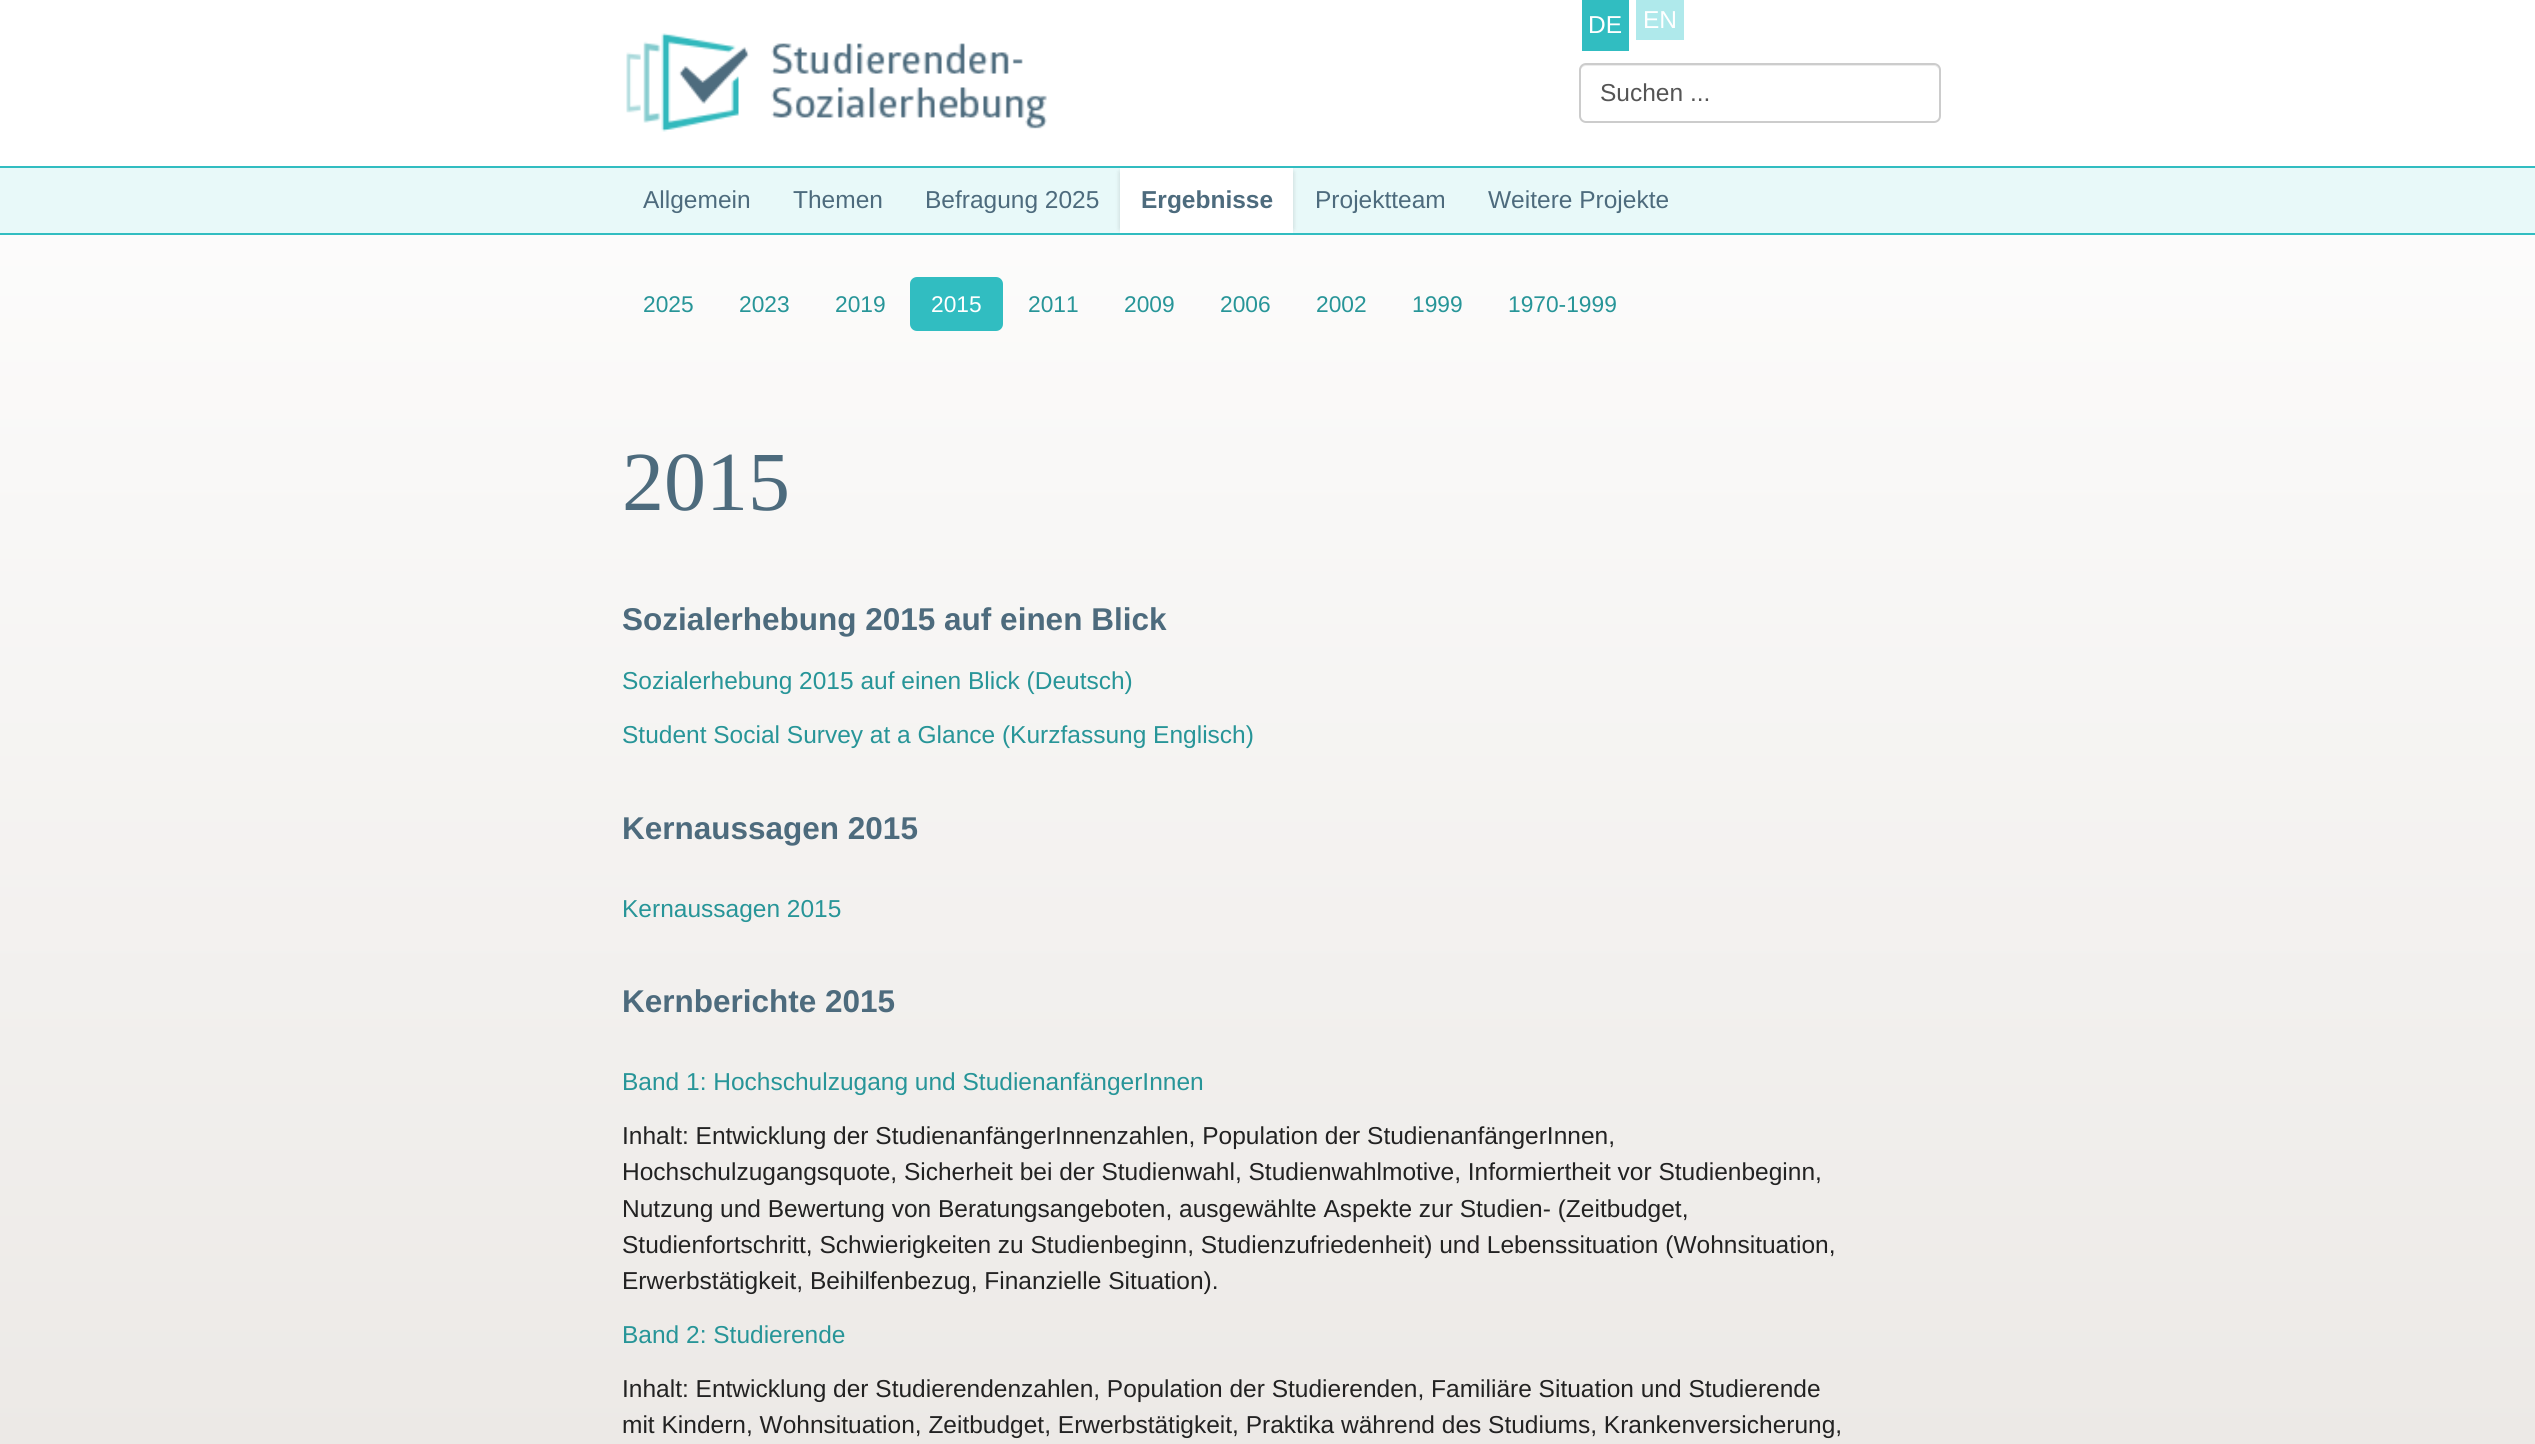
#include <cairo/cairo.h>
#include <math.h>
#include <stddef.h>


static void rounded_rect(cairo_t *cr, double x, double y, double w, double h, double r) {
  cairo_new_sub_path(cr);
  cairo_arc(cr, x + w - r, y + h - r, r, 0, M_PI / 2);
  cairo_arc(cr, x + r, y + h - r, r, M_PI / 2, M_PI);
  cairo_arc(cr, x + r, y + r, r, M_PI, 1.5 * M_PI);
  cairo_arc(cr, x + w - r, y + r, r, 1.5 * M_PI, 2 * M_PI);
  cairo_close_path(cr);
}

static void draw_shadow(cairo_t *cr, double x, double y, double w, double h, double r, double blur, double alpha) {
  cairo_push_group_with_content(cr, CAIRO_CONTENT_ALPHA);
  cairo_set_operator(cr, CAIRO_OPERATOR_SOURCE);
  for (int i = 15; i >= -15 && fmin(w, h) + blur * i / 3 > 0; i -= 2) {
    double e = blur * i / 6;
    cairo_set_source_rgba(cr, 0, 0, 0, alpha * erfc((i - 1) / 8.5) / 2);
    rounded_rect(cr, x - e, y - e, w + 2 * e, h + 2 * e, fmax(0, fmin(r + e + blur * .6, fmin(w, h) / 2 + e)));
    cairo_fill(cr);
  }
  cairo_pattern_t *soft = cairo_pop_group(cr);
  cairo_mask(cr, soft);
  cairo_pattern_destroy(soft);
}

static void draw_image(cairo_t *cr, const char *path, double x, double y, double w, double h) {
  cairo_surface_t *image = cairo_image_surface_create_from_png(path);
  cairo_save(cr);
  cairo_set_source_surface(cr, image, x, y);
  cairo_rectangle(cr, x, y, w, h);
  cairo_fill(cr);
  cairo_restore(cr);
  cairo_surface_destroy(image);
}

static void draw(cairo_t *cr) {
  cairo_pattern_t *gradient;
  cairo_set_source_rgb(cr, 1, 1, 1);
  cairo_paint(cr);
  gradient = cairo_pattern_create_linear(1268, 0, 1268, 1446);
  cairo_pattern_add_color_stop_rgba(gradient, 0, 1, 1, 1, 1);
  cairo_pattern_add_color_stop_rgba(gradient, 1, 236 / 255.0, 233 / 255.0, 230 / 255.0, 1);
  cairo_set_source(cr, gradient);
  cairo_pattern_destroy(gradient);
  cairo_rectangle(cr, 0, 235, 2535, 1209);
  cairo_fill(cr);
  cairo_set_source_rgb(cr, 49 / 255.0, 189 / 255.0, 193 / 255.0);
  cairo_rectangle(cr, 0, 166, 2535, 2);
  cairo_fill(cr);
  draw_image(cr, "images/1.png", 626, 33, 421, 99);
  cairo_rectangle(cr, 1582, 0, 47, 51);
  cairo_fill(cr);
  cairo_set_source_rgb(cr, 175 / 255.0, 233 / 255.0, 235 / 255.0);
  cairo_rectangle(cr, 1636, 0, 48, 40);
  cairo_fill(cr);
  cairo_set_source_rgb(cr, 236 / 255.0, 236 / 255.0, 236 / 255.0);
  cairo_new_path(cr);
  cairo_move_to(cr, 1586, 66);
  cairo_line_to(cr, 1934, 66);
  cairo_curve_to(cr, 1937, 66, 1939, 69, 1939, 72);
  cairo_curve_to(cr, 1939, 69, 1938, 65, 1934, 65);
  cairo_line_to(cr, 1585, 65);
  cairo_curve_to(cr, 1581, 65, 1580, 69, 1580, 72);
  cairo_curve_to(cr, 1580, 69, 1583, 66, 1586, 66);
  cairo_close_path(cr);
  cairo_fill(cr);
  rounded_rect(cr, 1580, 64, 360, 58, 6);
  cairo_set_source_rgb(cr, 204 / 255.0, 204 / 255.0, 204 / 255.0);
  cairo_stroke(cr);
  cairo_set_source_rgb(cr, 232 / 255.0, 249 / 255.0, 249 / 255.0);
  cairo_rectangle(cr, 0, 168, 2535, 65);
  cairo_fill(cr);
  cairo_set_source_rgb(cr, 49 / 255.0, 189 / 255.0, 193 / 255.0);
  cairo_rectangle(cr, 0, 233, 2535, 2);
  cairo_fill(cr);
  cairo_set_source_rgb(cr, 0, 0, 0);
  draw_shadow(cr, 1120, 172, 166, 57, 0, 2.5, 0.15);
  draw_shadow(cr, 1127, 172, 166, 57, 0, 2.5, 0.15);
  cairo_set_source_rgb(cr, 1, 1, 1);
  cairo_rectangle(cr, 1120, 168, 173, 65);
  cairo_fill(cr);
  cairo_set_source_rgb(cr, 49 / 255.0, 189 / 255.0, 193 / 255.0);
  rounded_rect(cr, 910, 277, 93, 54, 7);
  cairo_fill(cr);
  cairo_select_font_face(cr, "Liberation Sans", CAIRO_FONT_SLANT_NORMAL, CAIRO_FONT_WEIGHT_NORMAL);
  cairo_set_font_size(cr, 24.5);
  cairo_set_source_rgb(cr, 1, 1, 1);
  cairo_move_to(cr, 1588, 33);
  cairo_show_text(cr, "DE");
  cairo_move_to(cr, 1643, 28);
  cairo_show_text(cr, "EN");
  cairo_set_source_rgb(cr, 85 / 255.0, 85 / 255.0, 85 / 255.0);
  cairo_move_to(cr, 1600, 101);
  cairo_show_text(cr, "Suchen ...");
  cairo_set_source_rgb(cr, 77 / 255.0, 107 / 255.0, 125 / 255.0);
  cairo_move_to(cr, 643, 208);
  cairo_show_text(cr, "Allgemein");
  cairo_move_to(cr, 793, 208);
  cairo_show_text(cr, "Themen");
  cairo_move_to(cr, 925, 208);
  cairo_show_text(cr, "Befragung 2025");
  cairo_select_font_face(cr, "Liberation Sans", CAIRO_FONT_SLANT_NORMAL, CAIRO_FONT_WEIGHT_BOLD);
  cairo_move_to(cr, 1141, 208);
  cairo_show_text(cr, "Ergebnisse");
  cairo_select_font_face(cr, "Liberation Sans", CAIRO_FONT_SLANT_NORMAL, CAIRO_FONT_WEIGHT_NORMAL);
  cairo_move_to(cr, 1315, 208);
  cairo_show_text(cr, "Projektteam");
  cairo_move_to(cr, 1488, 208);
  cairo_show_text(cr, "Weitere Projekte");
  cairo_set_font_size(cr, 22.75);
  cairo_set_source_rgb(cr, 39 / 255.0, 149 / 255.0, 152 / 255.0);
  cairo_move_to(cr, 643, 312);
  cairo_show_text(cr, "2025");
  cairo_move_to(cr, 739, 312);
  cairo_show_text(cr, "2023");
  cairo_move_to(cr, 835, 312);
  cairo_show_text(cr, "2019");
  cairo_set_source_rgb(cr, 1, 1, 1);
  cairo_move_to(cr, 931, 312);
  cairo_show_text(cr, "2015");
  cairo_set_source_rgb(cr, 39 / 255.0, 149 / 255.0, 152 / 255.0);
  cairo_move_to(cr, 1028, 312);
  cairo_show_text(cr, "2011");
  cairo_move_to(cr, 1124, 312);
  cairo_show_text(cr, "2009");
  cairo_move_to(cr, 1220, 312);
  cairo_show_text(cr, "2006");
  cairo_move_to(cr, 1316, 312);
  cairo_show_text(cr, "2002");
  cairo_move_to(cr, 1412, 312);
  cairo_show_text(cr, "1999");
  cairo_move_to(cr, 1508, 312);
  cairo_show_text(cr, "1970-1999");
  cairo_select_font_face(cr, "Liberation Serif", CAIRO_FONT_SLANT_NORMAL, CAIRO_FONT_WEIGHT_NORMAL);
  cairo_set_font_size(cr, 84);
  cairo_set_source_rgb(cr, 77 / 255.0, 107 / 255.0, 125 / 255.0);
  cairo_move_to(cr, 622, 510);
  cairo_show_text(cr, "2015");
  cairo_select_font_face(cr, "Liberation Sans", CAIRO_FONT_SLANT_NORMAL, CAIRO_FONT_WEIGHT_BOLD);
  cairo_set_font_size(cr, 31.5);
  cairo_move_to(cr, 622, 630);
  cairo_show_text(cr, "Sozialerhebung 2015 auf einen Blick");
  cairo_select_font_face(cr, "Liberation Sans", CAIRO_FONT_SLANT_NORMAL, CAIRO_FONT_WEIGHT_NORMAL);
  cairo_set_font_size(cr, 24.5);
  cairo_set_source_rgb(cr, 39 / 255.0, 149 / 255.0, 152 / 255.0);
  cairo_move_to(cr, 622, 689);
  cairo_show_text(cr, "Sozialerhebung 2015 auf einen Blick (Deutsch)");
  cairo_move_to(cr, 622, 743);
  cairo_show_text(cr, "Student Social Survey at a Glance (Kurzfassung Englisch)");
  cairo_select_font_face(cr, "Liberation Sans", CAIRO_FONT_SLANT_NORMAL, CAIRO_FONT_WEIGHT_BOLD);
  cairo_set_font_size(cr, 31.5);
  cairo_set_source_rgb(cr, 77 / 255.0, 107 / 255.0, 125 / 255.0);
  cairo_move_to(cr, 622, 839);
  cairo_show_text(cr, "Kernaussagen 2015");
  cairo_select_font_face(cr, "Liberation Sans", CAIRO_FONT_SLANT_NORMAL, CAIRO_FONT_WEIGHT_NORMAL);
  cairo_set_font_size(cr, 24.5);
  cairo_set_source_rgb(cr, 39 / 255.0, 149 / 255.0, 152 / 255.0);
  cairo_move_to(cr, 622, 917);
  cairo_show_text(cr, "Kernaussagen 2015");
  cairo_select_font_face(cr, "Liberation Sans", CAIRO_FONT_SLANT_NORMAL, CAIRO_FONT_WEIGHT_BOLD);
  cairo_set_font_size(cr, 31.5);
  cairo_set_source_rgb(cr, 77 / 255.0, 107 / 255.0, 125 / 255.0);
  cairo_move_to(cr, 622, 1012);
  cairo_show_text(cr, "Kernberichte 2015");
  cairo_select_font_face(cr, "Liberation Sans", CAIRO_FONT_SLANT_NORMAL, CAIRO_FONT_WEIGHT_NORMAL);
  cairo_set_font_size(cr, 24.5);
  cairo_set_source_rgb(cr, 39 / 255.0, 149 / 255.0, 152 / 255.0);
  cairo_move_to(cr, 622, 1090);
  cairo_show_text(cr, "Band 1: Hochschulzugang und StudienanfängerInnen");
  cairo_set_source_rgb(cr, 34 / 255.0, 34 / 255.0, 34 / 255.0);
  cairo_move_to(cr, 622, 1144);
  cairo_show_text(cr, "Inhalt: Entwicklung der StudienanfängerInnenzahlen, Population der StudienanfängerInnen,");
  cairo_move_to(cr, 622, 1180);
  cairo_show_text(cr, "Hochschulzugangsquote, Sicherheit bei der Studienwahl, Studienwahlmotive, Informiertheit vor Studienbeginn,");
  cairo_move_to(cr, 622, 1217);
  cairo_show_text(cr, "Nutzung und Bewertung von Beratungsangeboten, ausgewählte Aspekte zur Studien- (Zeitbudget,");
  cairo_move_to(cr, 622, 1253);
  cairo_show_text(cr, "Studienfortschritt, Schwierigkeiten zu Studienbeginn, Studienzufriedenheit) und Lebenssituation (Wohnsituation,");
  cairo_move_to(cr, 622, 1289);
  cairo_show_text(cr, "Erwerbstätigkeit, Beihilfenbezug, Finanzielle Situation).");
  cairo_set_source_rgb(cr, 39 / 255.0, 149 / 255.0, 152 / 255.0);
  cairo_move_to(cr, 622, 1343);
  cairo_show_text(cr, "Band 2: Studierende");
  cairo_set_source_rgb(cr, 34 / 255.0, 34 / 255.0, 34 / 255.0);
  cairo_move_to(cr, 622, 1397);
  cairo_show_text(cr, "Inhalt: Entwicklung der Studierendenzahlen, Population der Studierenden, Familiäre Situation und Studierende");
  cairo_move_to(cr, 622, 1433);
  cairo_show_text(cr, "mit Kindern, Wohnsituation, Zeitbudget, Erwerbstätigkeit, Praktika während des Studiums, Krankenversicherung,");
}

int main(void) {
  cairo_surface_t *surface = cairo_image_surface_create(CAIRO_FORMAT_RGB24, 2535, 1444);
  cairo_t *cr = cairo_create(surface);
  cairo_font_options_t *options = cairo_font_options_create();
  cairo_font_options_set_hint_metrics(options, CAIRO_HINT_METRICS_OFF);
  cairo_font_options_set_hint_style(options, CAIRO_HINT_STYLE_NONE);
  cairo_set_font_options(cr, options);
  cairo_set_miter_limit(cr, 4);
  draw(cr);
  cairo_surface_write_to_png(surface, "out.png");
  cairo_font_options_destroy(options);
  cairo_destroy(cr);
  cairo_surface_destroy(surface);
  return 0;
}
